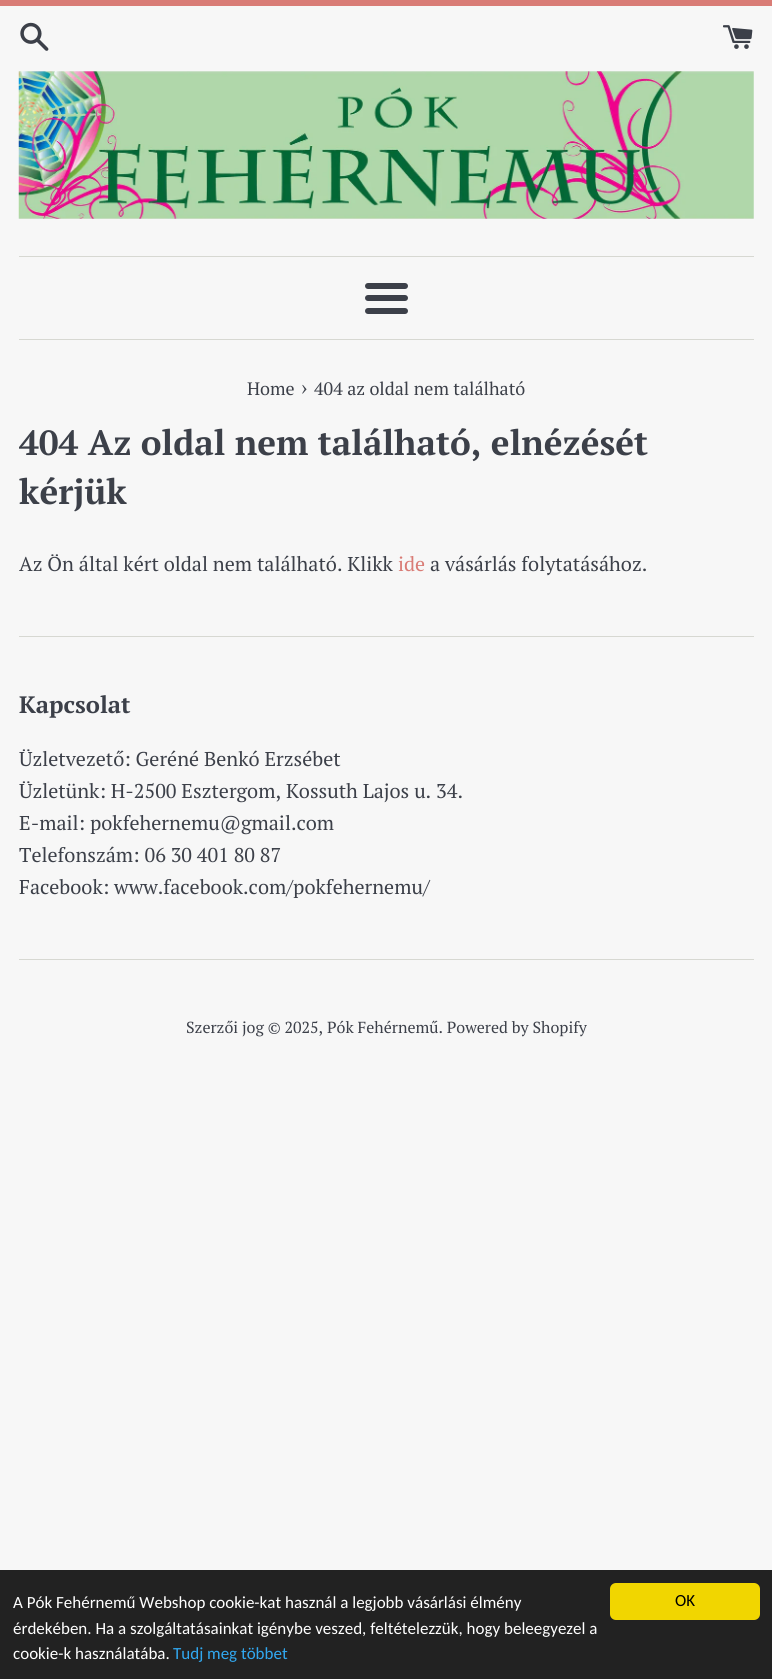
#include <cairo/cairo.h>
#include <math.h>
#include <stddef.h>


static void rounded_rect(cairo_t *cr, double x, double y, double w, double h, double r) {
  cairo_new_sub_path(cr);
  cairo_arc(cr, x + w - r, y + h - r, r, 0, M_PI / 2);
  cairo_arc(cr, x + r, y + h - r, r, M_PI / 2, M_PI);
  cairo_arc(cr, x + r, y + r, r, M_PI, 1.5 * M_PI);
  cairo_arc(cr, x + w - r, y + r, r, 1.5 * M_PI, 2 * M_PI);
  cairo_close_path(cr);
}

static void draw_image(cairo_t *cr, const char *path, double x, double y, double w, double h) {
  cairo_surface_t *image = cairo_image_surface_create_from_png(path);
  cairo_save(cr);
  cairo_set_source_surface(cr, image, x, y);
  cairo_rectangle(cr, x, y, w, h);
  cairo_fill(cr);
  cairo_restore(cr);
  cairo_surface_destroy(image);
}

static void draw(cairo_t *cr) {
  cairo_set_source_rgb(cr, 247 / 255.0, 247 / 255.0, 247 / 255.0);
  cairo_paint(cr);
  cairo_set_source_rgb(cr, 217 / 255.0, 124 / 255.0, 118 / 255.0);
  cairo_rectangle(cr, 0, 0, 772, 6);
  cairo_fill(cr);
  draw_image(cr, "images/1.png", 20, 22, 29, 29);
  draw_image(cr, "images/2.png", 723, 25, 30, 24);
  draw_image(cr, "images/3.png", 18, 71, 736, 148);
  cairo_set_source_rgb(cr, 215 / 255.0, 216 / 255.0, 210 / 255.0);
  cairo_rectangle(cr, 19, 256, 735, 1);
  cairo_fill(cr);
  cairo_set_source_rgb(cr, 60 / 255.0, 64 / 255.0, 73 / 255.0);
  rounded_rect(cr, 365, 283, 43, 6, 3);
  cairo_fill(cr);
  rounded_rect(cr, 365, 295, 43, 6, 3);
  cairo_fill(cr);
  rounded_rect(cr, 365, 308, 43, 6, 3);
  cairo_fill(cr);
  cairo_set_source_rgb(cr, 215 / 255.0, 216 / 255.0, 210 / 255.0);
  cairo_rectangle(cr, 19, 339, 735, 1);
  cairo_fill(cr);
  cairo_rectangle(cr, 19, 636, 735, 1);
  cairo_fill(cr);
  cairo_rectangle(cr, 19, 959, 735, 1);
  cairo_fill(cr);
  cairo_set_source_rgb(cr, 34 / 255.0, 34 / 255.0, 34 / 255.0);
  cairo_rectangle(cr, 0, 1570, 772, 109);
  cairo_fill(cr);
  cairo_set_source_rgb(cr, 241 / 255.0, 214 / 255.0, 0);
  rounded_rect(cr, 610, 1583, 150, 37, 6);
  cairo_fill(cr);
  cairo_select_font_face(cr, "PT Serif", CAIRO_FONT_SLANT_NORMAL, CAIRO_FONT_WEIGHT_NORMAL);
  cairo_set_font_size(cr, 18);
  cairo_set_source_rgb(cr, 60 / 255.0, 64 / 255.0, 73 / 255.0);
  cairo_move_to(cr, 247, 395);
  cairo_show_text(cr, "Home");
  cairo_set_font_size(cr, 22);
  cairo_move_to(cr, 301, 395);
  cairo_show_text(cr, "›");
  cairo_set_font_size(cr, 18);
  cairo_move_to(cr, 314, 395);
  cairo_show_text(cr, "404 az oldal nem található");
  cairo_select_font_face(cr, "PT Serif", CAIRO_FONT_SLANT_NORMAL, CAIRO_FONT_WEIGHT_BOLD);
  cairo_set_font_size(cr, 35);
  cairo_move_to(cr, 19, 455);
  cairo_show_text(cr, "404 Az oldal nem található, elnézését");
  cairo_move_to(cr, 19, 504);
  cairo_show_text(cr, "kérjük");
  cairo_select_font_face(cr, "PT Serif", CAIRO_FONT_SLANT_NORMAL, CAIRO_FONT_WEIGHT_NORMAL);
  cairo_set_font_size(cr, 20);
  cairo_move_to(cr, 19, 571);
  cairo_show_text(cr, "Az Ön által kért oldal nem található. Klikk");
  cairo_set_source_rgb(cr, 217 / 255.0, 124 / 255.0, 118 / 255.0);
  cairo_move_to(cr, 398, 571);
  cairo_show_text(cr, "ide");
  cairo_set_source_rgb(cr, 60 / 255.0, 64 / 255.0, 73 / 255.0);
  cairo_move_to(cr, 430, 571);
  cairo_show_text(cr, "a vásárlás folytatásához.");
  cairo_select_font_face(cr, "PT Serif", CAIRO_FONT_SLANT_NORMAL, CAIRO_FONT_WEIGHT_BOLD);
  cairo_set_font_size(cr, 23.75);
  cairo_move_to(cr, 19, 713);
  cairo_show_text(cr, "Kapcsolat");
  cairo_select_font_face(cr, "PT Serif", CAIRO_FONT_SLANT_NORMAL, CAIRO_FONT_WEIGHT_NORMAL);
  cairo_set_font_size(cr, 20);
  cairo_move_to(cr, 19, 766);
  cairo_show_text(cr, "Üzletvezető: Geréné Benkó Erzsébet");
  cairo_move_to(cr, 19, 798);
  cairo_show_text(cr, "Üzletünk: H-2500 Esztergom, Kossuth Lajos u. 34.");
  cairo_move_to(cr, 19, 830);
  cairo_show_text(cr, "E-mail: pokfehernemu@gmail.com");
  cairo_move_to(cr, 19, 862);
  cairo_show_text(cr, "Telefonszám: 06 30 401 80 87");
  cairo_move_to(cr, 19, 894);
  cairo_show_text(cr, "Facebook: www.facebook.com/pokfehernemu/");
  cairo_set_font_size(cr, 16);
  cairo_move_to(cr, 186, 1033);
  cairo_show_text(cr, "Szerzői jog © 2025, Pók Fehérnemű. Powered by Shopify");
  cairo_select_font_face(cr, "Carlito", CAIRO_FONT_SLANT_NORMAL, CAIRO_FONT_WEIGHT_NORMAL);
  cairo_set_font_size(cr, 17);
  cairo_set_source_rgb(cr, 1, 1, 1);
  cairo_move_to(cr, 13, 1608);
  cairo_show_text(cr, "A Pók Fehérnemű Webshop cookie-kat használ a legjobb vásárlási élmény");
  cairo_move_to(cr, 13, 1634);
  cairo_show_text(cr, "érdekében. Ha a szolgáltatásainkat igénybe veszed, feltételezzük, hogy beleegyezel a");
  cairo_move_to(cr, 13, 1659);
  cairo_show_text(cr, "cookie-k használatába.");
  cairo_set_source_rgb(cr, 49 / 255.0, 168 / 255.0, 240 / 255.0);
  cairo_move_to(cr, 173, 1659);
  cairo_show_text(cr, "Tudj meg többet");
  cairo_set_source_rgb(cr, 0, 0, 0);
  cairo_move_to(cr, 675, 1606);
  cairo_show_text(cr, "OK");
}

int main(void) {
  cairo_surface_t *surface = cairo_image_surface_create(CAIRO_FORMAT_RGB24, 772, 1679);
  cairo_t *cr = cairo_create(surface);
  cairo_font_options_t *options = cairo_font_options_create();
  cairo_font_options_set_hint_metrics(options, CAIRO_HINT_METRICS_OFF);
  cairo_font_options_set_hint_style(options, CAIRO_HINT_STYLE_NONE);
  cairo_set_font_options(cr, options);
  cairo_set_miter_limit(cr, 4);
  draw(cr);
  cairo_surface_write_to_png(surface, "out.png");
  cairo_font_options_destroy(options);
  cairo_destroy(cr);
  cairo_surface_destroy(surface);
  return 0;
}
